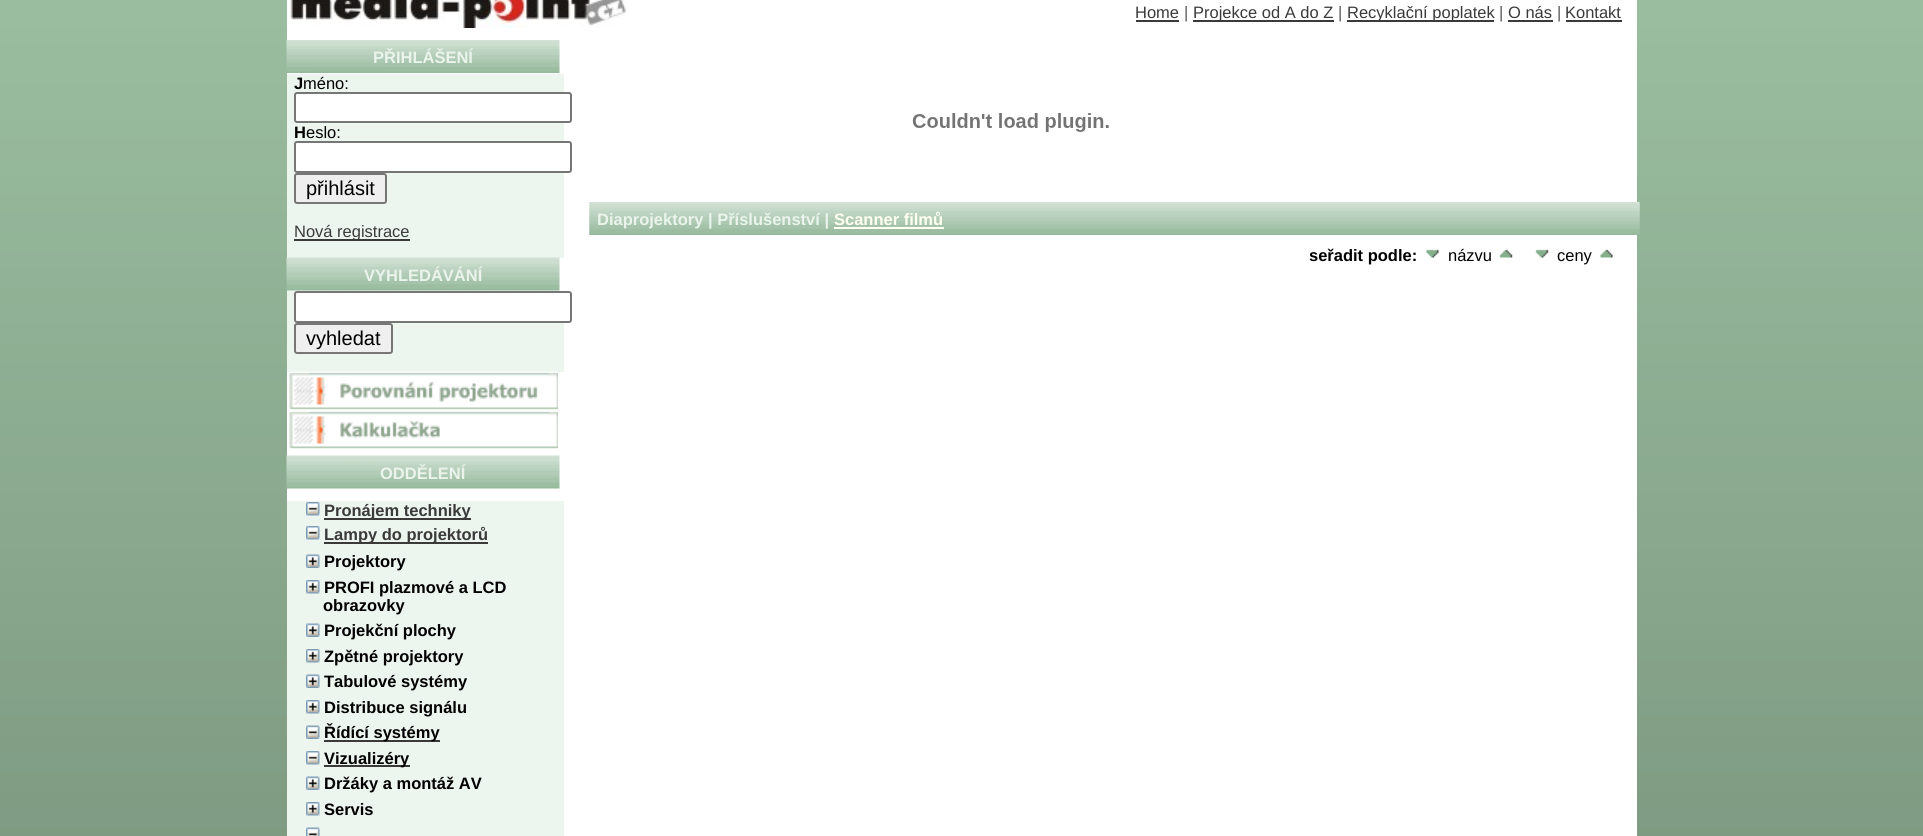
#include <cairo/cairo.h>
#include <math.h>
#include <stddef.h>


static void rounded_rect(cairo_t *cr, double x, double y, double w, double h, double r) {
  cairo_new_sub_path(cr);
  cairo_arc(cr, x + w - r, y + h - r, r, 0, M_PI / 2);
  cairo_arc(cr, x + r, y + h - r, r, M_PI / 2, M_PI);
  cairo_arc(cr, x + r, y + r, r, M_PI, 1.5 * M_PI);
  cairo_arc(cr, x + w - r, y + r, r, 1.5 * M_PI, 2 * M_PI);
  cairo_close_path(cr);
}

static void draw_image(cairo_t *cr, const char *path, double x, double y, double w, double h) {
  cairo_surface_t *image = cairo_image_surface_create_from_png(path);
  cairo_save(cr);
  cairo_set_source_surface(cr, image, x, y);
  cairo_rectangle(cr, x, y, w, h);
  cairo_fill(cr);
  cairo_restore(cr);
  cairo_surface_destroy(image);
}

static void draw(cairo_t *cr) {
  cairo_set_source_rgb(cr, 1, 1, 1);
  cairo_paint(cr);
  draw_image(cr, "images/1.png", 0, 0, 1923, 836);
  cairo_set_source_rgb(cr, 1, 1, 1);
  cairo_rectangle(cr, 287, 0, 1350, 836);
  cairo_fill(cr);
  draw_image(cr, "images/2.png", 289, 0, 337, 28);
  cairo_set_source_rgb(cr, 58 / 255.0, 58 / 255.0, 58 / 255.0);
  cairo_rectangle(cr, 1136, 20, 43, 2);
  cairo_fill(cr);
  cairo_rectangle(cr, 1193, 20, 141, 2);
  cairo_fill(cr);
  cairo_rectangle(cr, 1347, 20, 147, 2);
  cairo_fill(cr);
  cairo_rectangle(cr, 1508, 20, 45, 2);
  cairo_fill(cr);
  cairo_rectangle(cr, 1566, 20, 56, 2);
  cairo_fill(cr);
  draw_image(cr, "images/3.png", 286, 40, 274, 33);
  cairo_set_source_rgb(cr, 237 / 255.0, 245 / 255.0, 239 / 255.0);
  cairo_rectangle(cr, 287, 74, 277, 184);
  cairo_fill(cr);
  cairo_set_source_rgb(cr, 1, 1, 1);
  rounded_rect(cr, 295, 93, 276, 29, 2);
  cairo_fill_preserve(cr);
  cairo_set_source_rgb(cr, 118 / 255.0, 118 / 255.0, 118 / 255.0);
  cairo_stroke(cr);
  cairo_set_source_rgb(cr, 1, 1, 1);
  rounded_rect(cr, 295, 142, 276, 30, 2);
  cairo_fill_preserve(cr);
  cairo_set_source_rgb(cr, 118 / 255.0, 118 / 255.0, 118 / 255.0);
  cairo_stroke(cr);
  cairo_set_source_rgb(cr, 239 / 255.0, 239 / 255.0, 239 / 255.0);
  rounded_rect(cr, 295, 174, 91, 29, 2);
  cairo_fill_preserve(cr);
  cairo_set_source_rgb(cr, 118 / 255.0, 118 / 255.0, 118 / 255.0);
  cairo_stroke(cr);
  cairo_set_source_rgb(cr, 58 / 255.0, 58 / 255.0, 58 / 255.0);
  cairo_rectangle(cr, 294, 239, 116, 2);
  cairo_fill(cr);
  draw_image(cr, "images/4.png", 286, 257, 274, 34);
  cairo_set_source_rgb(cr, 237 / 255.0, 245 / 255.0, 239 / 255.0);
  cairo_rectangle(cr, 287, 291, 277, 81);
  cairo_fill(cr);
  cairo_set_source_rgb(cr, 1, 1, 1);
  rounded_rect(cr, 295, 292, 276, 30, 2);
  cairo_fill_preserve(cr);
  cairo_set_source_rgb(cr, 118 / 255.0, 118 / 255.0, 118 / 255.0);
  cairo_stroke(cr);
  cairo_set_source_rgb(cr, 239 / 255.0, 239 / 255.0, 239 / 255.0);
  rounded_rect(cr, 295, 324, 97, 29, 2);
  cairo_fill_preserve(cr);
  cairo_set_source_rgb(cr, 118 / 255.0, 118 / 255.0, 118 / 255.0);
  cairo_stroke(cr);
  draw_image(cr, "images/5.png", 289, 371, 269, 39);
  draw_image(cr, "images/6.png", 289, 411, 269, 38);
  draw_image(cr, "images/7.png", 286, 455, 274, 34);
  cairo_set_source_rgb(cr, 237 / 255.0, 245 / 255.0, 239 / 255.0);
  cairo_rectangle(cr, 287, 501, 277, 335);
  cairo_fill(cr);
  draw_image(cr, "images/8.png", 306, 502, 14, 14);
  cairo_set_source_rgb(cr, 58 / 255.0, 58 / 255.0, 58 / 255.0);
  cairo_rectangle(cr, 324, 518, 147, 2);
  cairo_fill(cr);
  draw_image(cr, "images/8.png", 306, 526, 14, 14);
  cairo_rectangle(cr, 324, 542, 164, 2);
  cairo_fill(cr);
  draw_image(cr, "images/9.png", 306, 554, 14, 14);
  draw_image(cr, "images/10.png", 306, 580, 14, 14);
  draw_image(cr, "images/9.png", 306, 623, 14, 14);
  draw_image(cr, "images/10.png", 306, 649, 14, 14);
  draw_image(cr, "images/9.png", 306, 674, 14, 14);
  draw_image(cr, "images/10.png", 306, 700, 14, 14);
  draw_image(cr, "images/11.png", 306, 725, 14, 14);
  cairo_rectangle(cr, 324, 740, 116, 2);
  cairo_fill(cr);
  draw_image(cr, "images/8.png", 306, 751, 14, 14);
  cairo_rectangle(cr, 324, 765, 86, 2);
  cairo_fill(cr);
  draw_image(cr, "images/9.png", 306, 776, 14, 14);
  draw_image(cr, "images/10.png", 306, 802, 14, 14);
  draw_image(cr, "images/12.png", 306, 827, 14, 9);
  draw_image(cr, "images/13.png", 912, 113, 197, 19);
  draw_image(cr, "images/14.png", 589, 202, 1051, 33);
  draw_image(cr, "images/15.png", 589, 202, 1051, 33);
  cairo_set_source_rgb(cr, 1, 1, 240 / 255.0);
  cairo_rectangle(cr, 834, 227, 110, 2);
  cairo_fill(cr);
  draw_image(cr, "images/16.png", 1426, 249, 13, 9);
  draw_image(cr, "images/17.png", 1499, 249, 14, 9);
  draw_image(cr, "images/18.png", 1535, 249, 14, 9);
  draw_image(cr, "images/19.png", 1600, 249, 13, 9);
  cairo_select_font_face(cr, "Liberation Sans", CAIRO_FONT_SLANT_NORMAL, CAIRO_FONT_WEIGHT_NORMAL);
  cairo_set_font_size(cr, 16.5);
  cairo_set_source_rgb(cr, 58 / 255.0, 58 / 255.0, 58 / 255.0);
  cairo_move_to(cr, 1135, 18);
  cairo_show_text(cr, "Home");
  cairo_set_source_rgb(cr, 88 / 255.0, 88 / 255.0, 88 / 255.0);
  cairo_move_to(cr, 1184, 18);
  cairo_show_text(cr, "|");
  cairo_set_source_rgb(cr, 58 / 255.0, 58 / 255.0, 58 / 255.0);
  cairo_move_to(cr, 1193, 18);
  cairo_show_text(cr, "Projekce od A do Z");
  cairo_set_source_rgb(cr, 88 / 255.0, 88 / 255.0, 88 / 255.0);
  cairo_move_to(cr, 1338, 18);
  cairo_show_text(cr, "|");
  cairo_set_source_rgb(cr, 58 / 255.0, 58 / 255.0, 58 / 255.0);
  cairo_move_to(cr, 1347, 18);
  cairo_show_text(cr, "Recyklační poplatek");
  cairo_set_source_rgb(cr, 88 / 255.0, 88 / 255.0, 88 / 255.0);
  cairo_move_to(cr, 1499, 18);
  cairo_show_text(cr, "|");
  cairo_set_source_rgb(cr, 58 / 255.0, 58 / 255.0, 58 / 255.0);
  cairo_move_to(cr, 1508, 18);
  cairo_show_text(cr, "O nás");
  cairo_set_source_rgb(cr, 88 / 255.0, 88 / 255.0, 88 / 255.0);
  cairo_move_to(cr, 1557, 18);
  cairo_show_text(cr, "|");
  cairo_set_source_rgb(cr, 58 / 255.0, 58 / 255.0, 58 / 255.0);
  cairo_move_to(cr, 1565, 18);
  cairo_show_text(cr, "Kontakt");
  cairo_select_font_face(cr, "Liberation Sans", CAIRO_FONT_SLANT_NORMAL, CAIRO_FONT_WEIGHT_BOLD);
  cairo_set_source_rgb(cr, 234 / 255.0, 244 / 255.0, 236 / 255.0);
  cairo_move_to(cr, 373, 63);
  cairo_show_text(cr, "PŘIHLÁŠENÍ");
  cairo_set_source_rgb(cr, 0, 0, 0);
  cairo_move_to(cr, 294, 89);
  cairo_show_text(cr, "J");
  cairo_select_font_face(cr, "Liberation Sans", CAIRO_FONT_SLANT_NORMAL, CAIRO_FONT_WEIGHT_NORMAL);
  cairo_move_to(cr, 303, 89);
  cairo_show_text(cr, "méno:");
  cairo_select_font_face(cr, "Liberation Sans", CAIRO_FONT_SLANT_NORMAL, CAIRO_FONT_WEIGHT_BOLD);
  cairo_move_to(cr, 294, 138);
  cairo_show_text(cr, "H");
  cairo_select_font_face(cr, "Liberation Sans", CAIRO_FONT_SLANT_NORMAL, CAIRO_FONT_WEIGHT_NORMAL);
  cairo_move_to(cr, 306, 138);
  cairo_show_text(cr, "eslo:");
  cairo_set_font_size(cr, 20);
  cairo_move_to(cr, 306, 195);
  cairo_show_text(cr, "přihlásit");
  cairo_set_font_size(cr, 16.5);
  cairo_set_source_rgb(cr, 58 / 255.0, 58 / 255.0, 58 / 255.0);
  cairo_move_to(cr, 294, 237);
  cairo_show_text(cr, "Nová registrace");
  cairo_select_font_face(cr, "Liberation Sans", CAIRO_FONT_SLANT_NORMAL, CAIRO_FONT_WEIGHT_BOLD);
  cairo_set_source_rgb(cr, 234 / 255.0, 244 / 255.0, 236 / 255.0);
  cairo_move_to(cr, 364, 281);
  cairo_show_text(cr, "VYHLEDÁVÁNÍ");
  cairo_select_font_face(cr, "Liberation Sans", CAIRO_FONT_SLANT_NORMAL, CAIRO_FONT_WEIGHT_NORMAL);
  cairo_set_font_size(cr, 20);
  cairo_set_source_rgb(cr, 0, 0, 0);
  cairo_move_to(cr, 306, 345);
  cairo_show_text(cr, "vyhledat");
  cairo_select_font_face(cr, "Liberation Sans", CAIRO_FONT_SLANT_NORMAL, CAIRO_FONT_WEIGHT_BOLD);
  cairo_set_font_size(cr, 16.5);
  cairo_set_source_rgb(cr, 234 / 255.0, 244 / 255.0, 236 / 255.0);
  cairo_move_to(cr, 380, 479);
  cairo_show_text(cr, "ODDĚLENÍ");
  cairo_set_source_rgb(cr, 58 / 255.0, 58 / 255.0, 58 / 255.0);
  cairo_move_to(cr, 324, 516);
  cairo_show_text(cr, "Pronájem techniky");
  cairo_move_to(cr, 324, 540);
  cairo_show_text(cr, "Lampy do projektorů");
  cairo_set_source_rgb(cr, 0, 0, 0);
  cairo_move_to(cr, 324, 567);
  cairo_show_text(cr, "Projektory");
  cairo_move_to(cr, 324, 593);
  cairo_show_text(cr, "PROFI plazmové a LCD");
  cairo_move_to(cr, 323, 611);
  cairo_show_text(cr, "obrazovky");
  cairo_move_to(cr, 324, 636);
  cairo_show_text(cr, "Projekční plochy");
  cairo_move_to(cr, 324, 662);
  cairo_show_text(cr, "Zpětné projektory");
  cairo_move_to(cr, 324, 687);
  cairo_show_text(cr, "Tabulové systémy");
  cairo_move_to(cr, 324, 713);
  cairo_show_text(cr, "Distribuce signálu");
  cairo_move_to(cr, 324, 738);
  cairo_show_text(cr, "Řídící systémy");
  cairo_move_to(cr, 324, 764);
  cairo_show_text(cr, "Vizualizéry");
  cairo_move_to(cr, 324, 789);
  cairo_show_text(cr, "Držáky a montáž AV");
  cairo_move_to(cr, 324, 815);
  cairo_show_text(cr, "Servis");
  cairo_set_source_rgb(cr, 234 / 255.0, 244 / 255.0, 236 / 255.0);
  cairo_move_to(cr, 597, 225);
  cairo_show_text(cr, "Diaprojektory | Příslušenství |");
  cairo_set_source_rgb(cr, 1, 1, 240 / 255.0);
  cairo_move_to(cr, 834, 225);
  cairo_show_text(cr, "Scanner filmů");
  cairo_set_source_rgb(cr, 0, 0, 0);
  cairo_move_to(cr, 1309, 261);
  cairo_show_text(cr, "seřadit podle:");
  cairo_select_font_face(cr, "Liberation Sans", CAIRO_FONT_SLANT_NORMAL, CAIRO_FONT_WEIGHT_NORMAL);
  cairo_move_to(cr, 1448, 261);
  cairo_show_text(cr, "názvu");
  cairo_move_to(cr, 1557, 261);
  cairo_show_text(cr, "ceny");
}

int main(void) {
  cairo_surface_t *surface = cairo_image_surface_create(CAIRO_FORMAT_RGB24, 1923, 836);
  cairo_t *cr = cairo_create(surface);
  cairo_font_options_t *options = cairo_font_options_create();
  cairo_font_options_set_hint_metrics(options, CAIRO_HINT_METRICS_OFF);
  cairo_font_options_set_hint_style(options, CAIRO_HINT_STYLE_NONE);
  cairo_set_font_options(cr, options);
  cairo_set_miter_limit(cr, 4);
  draw(cr);
  cairo_surface_write_to_png(surface, "out.png");
  cairo_font_options_destroy(options);
  cairo_destroy(cr);
  cairo_surface_destroy(surface);
  return 0;
}
